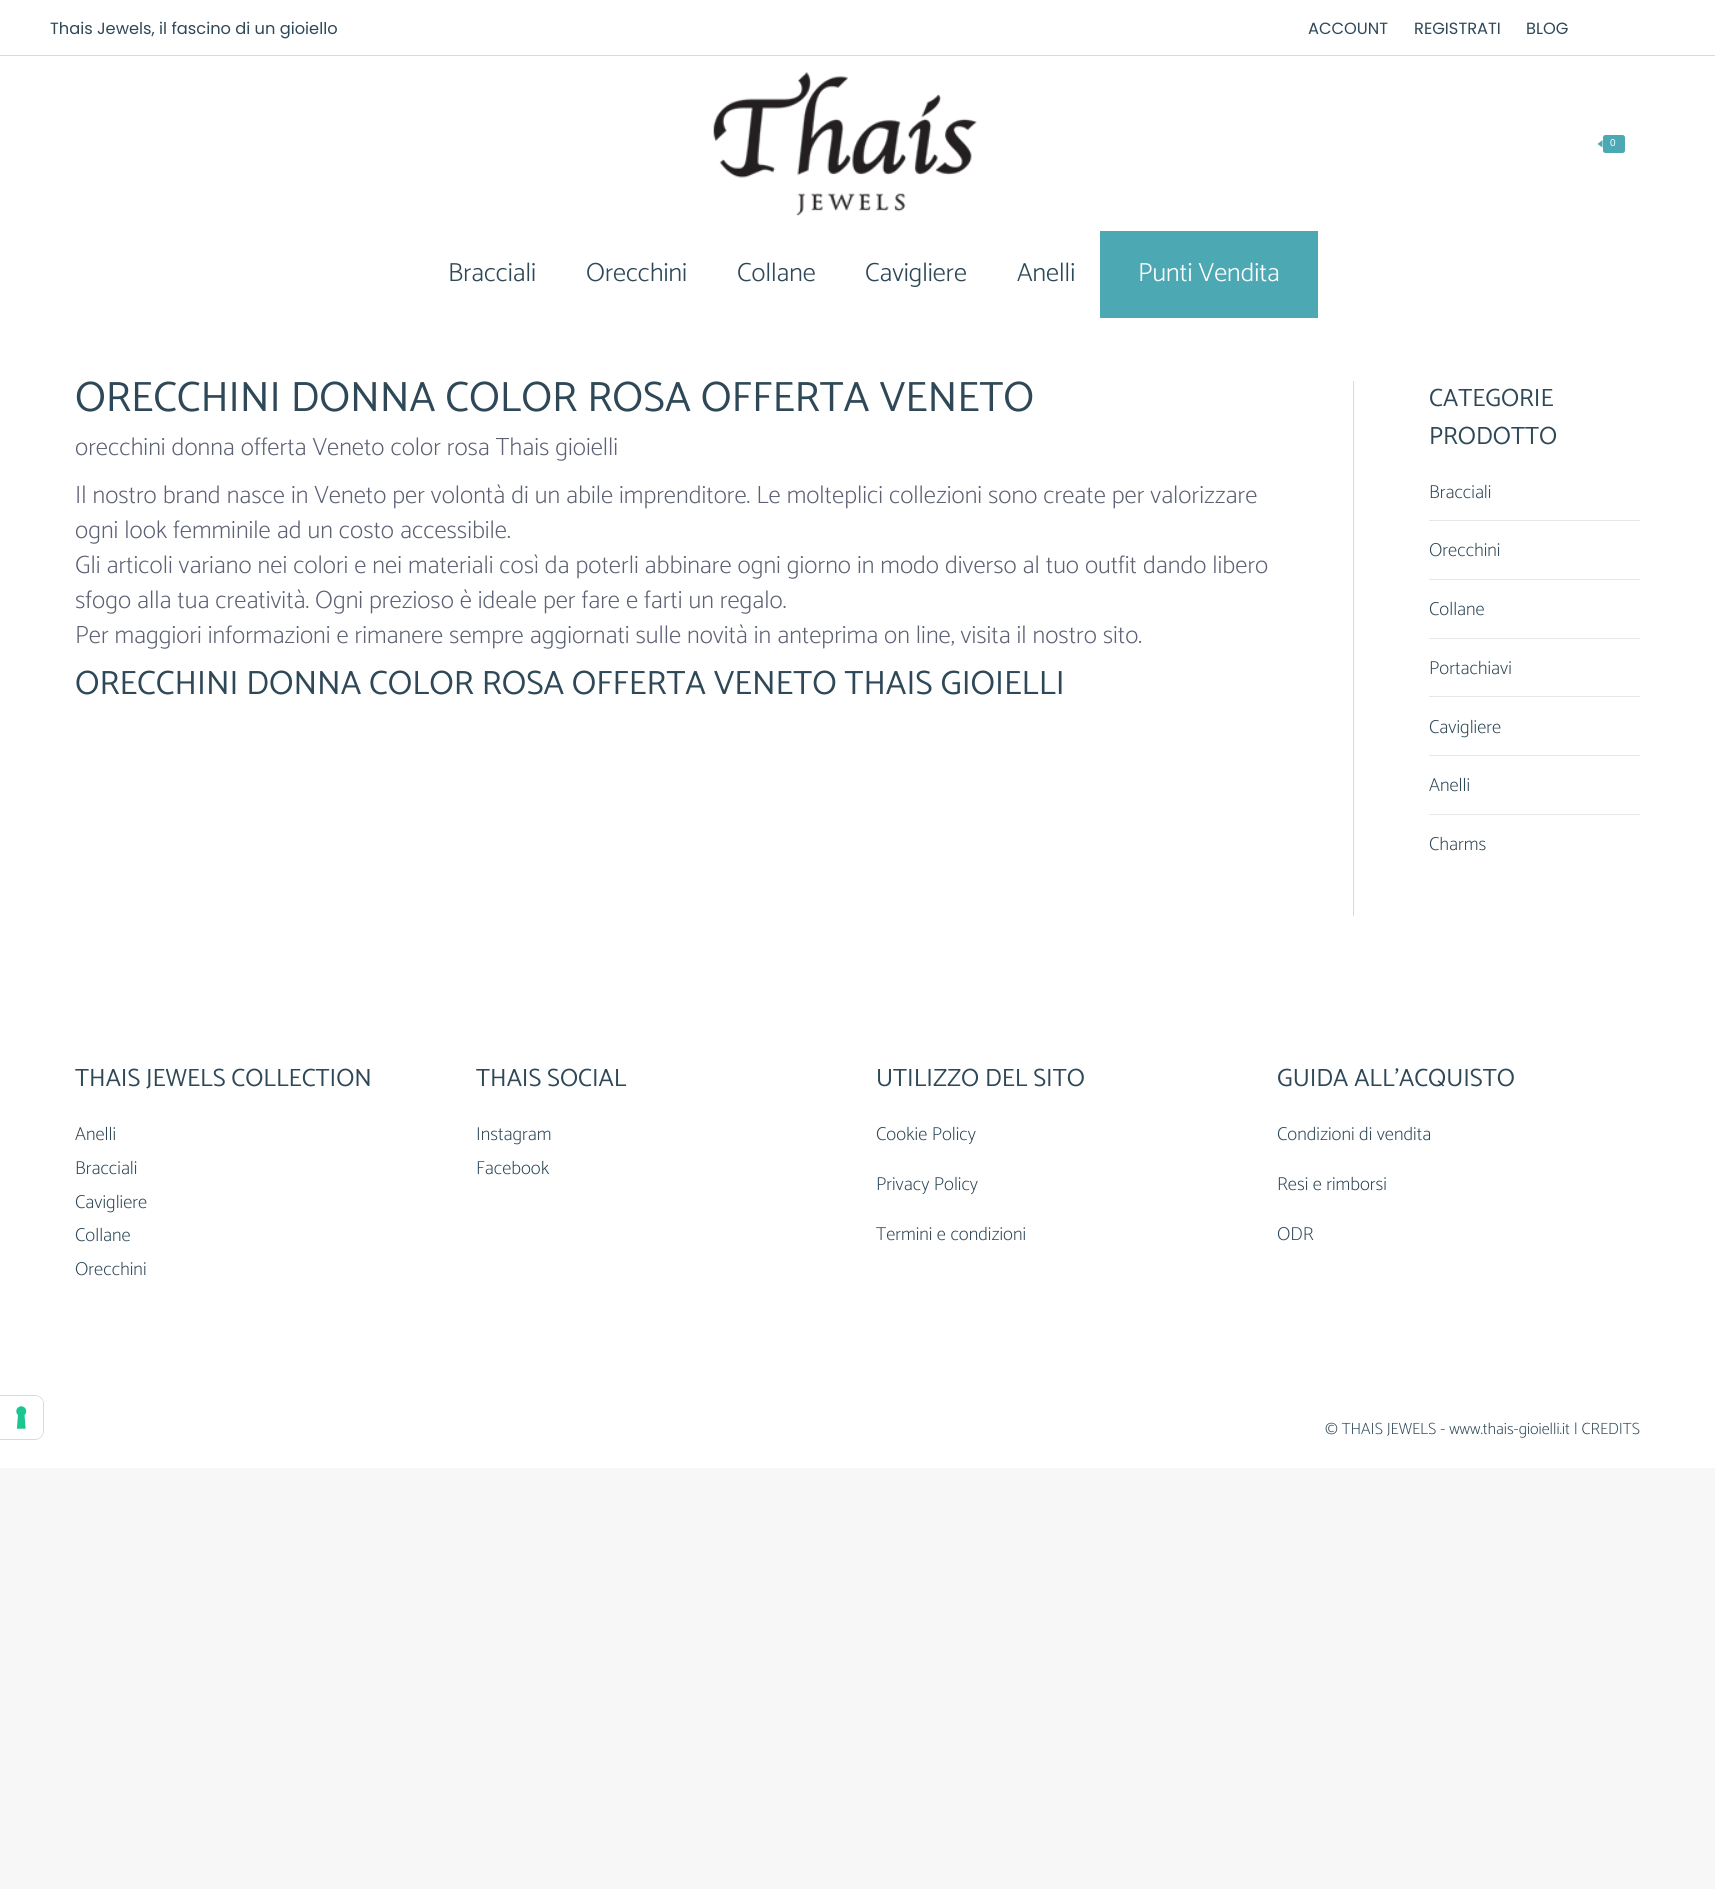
#include <cairo/cairo.h>
#include <math.h>
#include <stddef.h>


static void rounded_rect(cairo_t *cr, double x, double y, double w, double h, double r) {
  cairo_new_sub_path(cr);
  cairo_arc(cr, x + w - r, y + h - r, r, 0, M_PI / 2);
  cairo_arc(cr, x + r, y + h - r, r, M_PI / 2, M_PI);
  cairo_arc(cr, x + r, y + r, r, M_PI, 1.5 * M_PI);
  cairo_arc(cr, x + w - r, y + r, r, 1.5 * M_PI, 2 * M_PI);
  cairo_close_path(cr);
}

static void draw_image(cairo_t *cr, const char *path, double x, double y, double w, double h) {
  cairo_surface_t *image = cairo_image_surface_create_from_png(path);
  cairo_save(cr);
  cairo_set_source_surface(cr, image, x, y);
  cairo_rectangle(cr, x, y, w, h);
  cairo_fill(cr);
  cairo_restore(cr);
  cairo_surface_destroy(image);
}

static void draw(cairo_t *cr) {
  cairo_set_source_rgb(cr, 247 / 255.0, 247 / 255.0, 247 / 255.0);
  cairo_paint(cr);
  cairo_set_source_rgb(cr, 1, 1, 1);
  cairo_rectangle(cr, 0, 0, 1715, 1468);
  cairo_fill(cr);
  cairo_new_path(cr);
  cairo_move_to(cr, -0.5, 1395.5);
  cairo_line_to(cr, 35, 1395.5);
  cairo_curve_to(cr, 39.5, 1395.5, 43.5, 1399.5, 43.5, 1404);
  cairo_line_to(cr, 43.5, 1431);
  cairo_curve_to(cr, 43.5, 1435.5, 39.5, 1439.5, 35, 1439.5);
  cairo_line_to(cr, -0.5, 1439.5);
  cairo_close_path(cr);
  cairo_set_source_rgb(cr, 217 / 255.0, 217 / 255.0, 217 / 255.0);
  cairo_set_line_width(cr, 1);
  cairo_stroke(cr);
  cairo_set_source_rgb(cr, 1, 1, 1);
  cairo_new_path(cr);
  cairo_move_to(cr, 0, 1396);
  cairo_line_to(cr, 35, 1396);
  cairo_curve_to(cr, 39.5, 1396, 43, 1399.5, 43, 1404);
  cairo_line_to(cr, 43, 1431);
  cairo_curve_to(cr, 43, 1435.5, 39.5, 1439, 35, 1439);
  cairo_line_to(cr, 0, 1439);
  cairo_close_path(cr);
  cairo_fill(cr);
  draw_image(cr, "images/1.png", 16, 1406, 11, 23);
  cairo_set_source_rgb(cr, 213 / 255.0, 218 / 255.0, 222 / 255.0);
  cairo_rectangle(cr, 0, 55, 1715, 1);
  cairo_fill(cr);
  draw_image(cr, "images/2.png", 713, 72, 264, 144);
  cairo_set_source_rgb(cr, 76 / 255.0, 169 / 255.0, 180 / 255.0);
  rounded_rect(cr, 1603, 135, 22, 18, 2.5);
  cairo_fill(cr);
  cairo_new_path(cr);
  cairo_move_to(cr, 1602.5, 140);
  cairo_line_to(cr, 1602.5, 147.5);
  cairo_line_to(cr, 1597.5, 144);
  cairo_close_path(cr);
  cairo_fill(cr);
  cairo_rectangle(cr, 1100, 231, 218, 87);
  cairo_fill(cr);
  cairo_set_source_rgb(cr, 213 / 255.0, 218 / 255.0, 222 / 255.0);
  cairo_rectangle(cr, 1353, 381, 1, 535);
  cairo_fill(cr);
  cairo_set_source_rgb(cr, 231 / 255.0, 231 / 255.0, 234 / 255.0);
  cairo_rectangle(cr, 1429, 520, 211, 1);
  cairo_fill(cr);
  cairo_rectangle(cr, 1429, 579, 211, 1);
  cairo_fill(cr);
  cairo_rectangle(cr, 1429, 638, 211, 1);
  cairo_fill(cr);
  cairo_rectangle(cr, 1429, 696, 211, 1);
  cairo_fill(cr);
  cairo_rectangle(cr, 1429, 755, 211, 1);
  cairo_fill(cr);
  cairo_rectangle(cr, 1429, 814, 211, 1);
  cairo_fill(cr);
  cairo_select_font_face(cr, "Poppins", CAIRO_FONT_SLANT_NORMAL, CAIRO_FONT_WEIGHT_NORMAL);
  cairo_set_font_size(cr, 16.25);
  cairo_set_source_rgb(cr, 47 / 255.0, 72 / 255.0, 88 / 255.0);
  cairo_move_to(cr, 50, 34);
  cairo_show_text(cr, "Thais Jewels, il fascino di un gioiello");
  cairo_move_to(cr, 1308, 34);
  cairo_show_text(cr, "ACCOUNT");
  cairo_move_to(cr, 1414, 34);
  cairo_show_text(cr, "REGISTRATI");
  cairo_move_to(cr, 1526, 34);
  cairo_show_text(cr, "BLOG");
  cairo_select_font_face(cr, "Liberation Sans", CAIRO_FONT_SLANT_NORMAL, CAIRO_FONT_WEIGHT_NORMAL);
  cairo_set_font_size(cr, 10);
  cairo_set_source_rgb(cr, 1, 1, 1);
  cairo_move_to(cr, 1610, 146);
  cairo_show_text(cr, "0");
  cairo_select_font_face(cr, "Catamaran Light", CAIRO_FONT_SLANT_NORMAL, CAIRO_FONT_WEIGHT_NORMAL);
  cairo_set_font_size(cr, 26.25);
  cairo_set_source_rgb(cr, 47 / 255.0, 72 / 255.0, 88 / 255.0);
  cairo_move_to(cr, 448, 281);
  cairo_show_text(cr, "Bracciali");
  cairo_move_to(cr, 586, 281);
  cairo_show_text(cr, "Orecchini");
  cairo_move_to(cr, 737, 281);
  cairo_show_text(cr, "Collane");
  cairo_move_to(cr, 865, 281);
  cairo_show_text(cr, "Cavigliere");
  cairo_move_to(cr, 1017, 281);
  cairo_show_text(cr, "Anelli");
  cairo_set_source_rgb(cr, 1, 1, 1);
  cairo_move_to(cr, 1138, 281);
  cairo_show_text(cr, "Punti Vendita");
  cairo_select_font_face(cr, "Catamaran", CAIRO_FONT_SLANT_NORMAL, CAIRO_FONT_WEIGHT_NORMAL);
  cairo_set_font_size(cr, 42.5);
  cairo_set_source_rgb(cr, 47 / 255.0, 72 / 255.0, 88 / 255.0);
  cairo_move_to(cr, 75, 411);
  cairo_show_text(cr, "ORECCHINI DONNA COLOR ROSA OFFERTA VENETO");
  cairo_select_font_face(cr, "Catamaran ExtraLight", CAIRO_FONT_SLANT_NORMAL, CAIRO_FONT_WEIGHT_NORMAL);
  cairo_set_font_size(cr, 25);
  cairo_set_source_rgb(cr, 92 / 255.0, 97 / 255.0, 116 / 255.0);
  cairo_move_to(cr, 75, 455);
  cairo_show_text(cr, "orecchini donna offerta Veneto color rosa Thais gioielli");
  cairo_move_to(cr, 75, 503);
  cairo_show_text(cr, "Il nostro brand nasce in Veneto per volontà di un abile imprenditore. Le molteplici collezioni sono create per valorizzare");
  cairo_move_to(cr, 75, 538);
  cairo_show_text(cr, "ogni look femminile ad un costo accessibile.");
  cairo_move_to(cr, 75, 573);
  cairo_show_text(cr, "Gli articoli variano nei colori e nei materiali così da poterli abbinare ogni giorno in modo diverso al tuo outfit dando libero");
  cairo_move_to(cr, 75, 608);
  cairo_show_text(cr, "sfogo alla tua creatività. Ogni prezioso è ideale per fare e farti un regalo.");
  cairo_move_to(cr, 75, 643);
  cairo_show_text(cr, "Per maggiori informazioni e rimanere sempre aggiornati sulle novità in anteprima on line, visita il nostro sito.");
  cairo_select_font_face(cr, "Catamaran", CAIRO_FONT_SLANT_NORMAL, CAIRO_FONT_WEIGHT_NORMAL);
  cairo_set_font_size(cr, 33.75);
  cairo_set_source_rgb(cr, 47 / 255.0, 72 / 255.0, 88 / 255.0);
  cairo_move_to(cr, 75, 694);
  cairo_show_text(cr, "ORECCHINI DONNA COLOR ROSA OFFERTA VENETO THAIS GIOIELLI");
  cairo_set_font_size(cr, 25);
  cairo_move_to(cr, 1429, 406);
  cairo_show_text(cr, "CATEGORIE");
  cairo_move_to(cr, 1429, 444);
  cairo_show_text(cr, "PRODOTTO");
  cairo_select_font_face(cr, "Catamaran ExtraLight", CAIRO_FONT_SLANT_NORMAL, CAIRO_FONT_WEIGHT_NORMAL);
  cairo_set_font_size(cr, 18.75);
  cairo_move_to(cr, 1429, 498);
  cairo_show_text(cr, "Bracciali");
  cairo_move_to(cr, 1429, 556);
  cairo_show_text(cr, "Orecchini");
  cairo_move_to(cr, 1429, 615);
  cairo_show_text(cr, "Collane");
  cairo_move_to(cr, 1429, 674);
  cairo_show_text(cr, "Portachiavi");
  cairo_move_to(cr, 1429, 733);
  cairo_show_text(cr, "Cavigliere");
  cairo_move_to(cr, 1429, 791);
  cairo_show_text(cr, "Anelli");
  cairo_move_to(cr, 1429, 850);
  cairo_show_text(cr, "Charms");
  cairo_select_font_face(cr, "Catamaran", CAIRO_FONT_SLANT_NORMAL, CAIRO_FONT_WEIGHT_NORMAL);
  cairo_set_font_size(cr, 25);
  cairo_move_to(cr, 75, 1086);
  cairo_show_text(cr, "THAIS JEWELS COLLECTION");
  cairo_select_font_face(cr, "Catamaran ExtraLight", CAIRO_FONT_SLANT_NORMAL, CAIRO_FONT_WEIGHT_NORMAL);
  cairo_set_font_size(cr, 18.75);
  cairo_move_to(cr, 75, 1140);
  cairo_show_text(cr, "Anelli");
  cairo_move_to(cr, 75, 1174);
  cairo_show_text(cr, "Bracciali");
  cairo_move_to(cr, 75, 1208);
  cairo_show_text(cr, "Cavigliere");
  cairo_move_to(cr, 75, 1241);
  cairo_show_text(cr, "Collane");
  cairo_move_to(cr, 75, 1275);
  cairo_show_text(cr, "Orecchini");
  cairo_select_font_face(cr, "Catamaran", CAIRO_FONT_SLANT_NORMAL, CAIRO_FONT_WEIGHT_NORMAL);
  cairo_set_font_size(cr, 25);
  cairo_move_to(cr, 476, 1086);
  cairo_show_text(cr, "THAIS SOCIAL");
  cairo_select_font_face(cr, "Catamaran ExtraLight", CAIRO_FONT_SLANT_NORMAL, CAIRO_FONT_WEIGHT_NORMAL);
  cairo_set_font_size(cr, 18.75);
  cairo_move_to(cr, 476, 1140);
  cairo_show_text(cr, "Instagram");
  cairo_move_to(cr, 476, 1174);
  cairo_show_text(cr, "Facebook");
  cairo_select_font_face(cr, "Catamaran", CAIRO_FONT_SLANT_NORMAL, CAIRO_FONT_WEIGHT_NORMAL);
  cairo_set_font_size(cr, 25);
  cairo_move_to(cr, 876, 1086);
  cairo_show_text(cr, "UTILIZZO DEL SITO");
  cairo_select_font_face(cr, "Catamaran ExtraLight", CAIRO_FONT_SLANT_NORMAL, CAIRO_FONT_WEIGHT_NORMAL);
  cairo_set_font_size(cr, 18.75);
  cairo_move_to(cr, 876, 1140);
  cairo_show_text(cr, "Cookie Policy");
  cairo_move_to(cr, 876, 1190);
  cairo_show_text(cr, "Privacy Policy");
  cairo_move_to(cr, 876, 1240);
  cairo_show_text(cr, "Termini e condizioni");
  cairo_select_font_face(cr, "Catamaran", CAIRO_FONT_SLANT_NORMAL, CAIRO_FONT_WEIGHT_NORMAL);
  cairo_set_font_size(cr, 25);
  cairo_move_to(cr, 1277, 1086);
  cairo_show_text(cr, "GUIDA ALL’ACQUISTO");
  cairo_select_font_face(cr, "Catamaran ExtraLight", CAIRO_FONT_SLANT_NORMAL, CAIRO_FONT_WEIGHT_NORMAL);
  cairo_set_font_size(cr, 18.75);
  cairo_move_to(cr, 1277, 1140);
  cairo_show_text(cr, "Condizioni di vendita");
  cairo_move_to(cr, 1277, 1190);
  cairo_show_text(cr, "Resi e rimborsi");
  cairo_move_to(cr, 1277, 1240);
  cairo_show_text(cr, "ODR");
  cairo_set_font_size(cr, 16.25);
  cairo_move_to(cr, 1325, 1434);
  cairo_show_text(cr, "© THAIS JEWELS - www.thais-gioielli.it | CREDITS");
}

int main(void) {
  cairo_surface_t *surface = cairo_image_surface_create(CAIRO_FORMAT_RGB24, 1715, 1889);
  cairo_t *cr = cairo_create(surface);
  cairo_font_options_t *options = cairo_font_options_create();
  cairo_font_options_set_hint_metrics(options, CAIRO_HINT_METRICS_OFF);
  cairo_font_options_set_hint_style(options, CAIRO_HINT_STYLE_NONE);
  cairo_set_font_options(cr, options);
  cairo_set_miter_limit(cr, 4);
  draw(cr);
  cairo_surface_write_to_png(surface, "out.png");
  cairo_font_options_destroy(options);
  cairo_destroy(cr);
  cairo_surface_destroy(surface);
  return 0;
}
